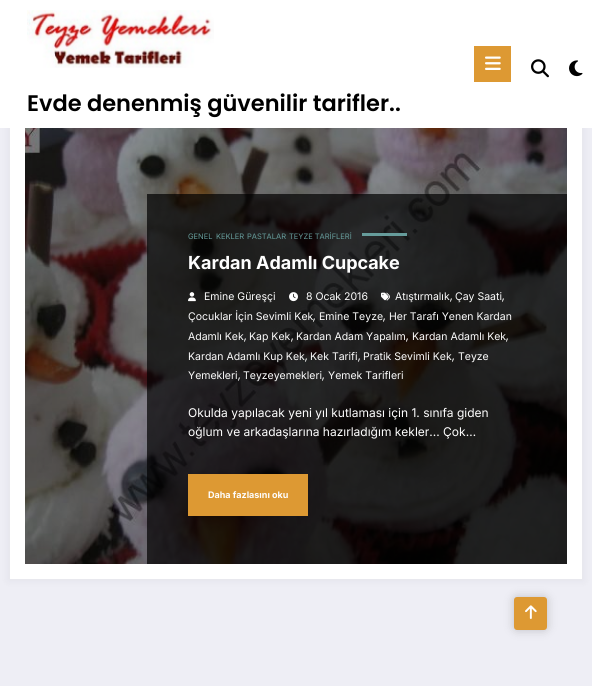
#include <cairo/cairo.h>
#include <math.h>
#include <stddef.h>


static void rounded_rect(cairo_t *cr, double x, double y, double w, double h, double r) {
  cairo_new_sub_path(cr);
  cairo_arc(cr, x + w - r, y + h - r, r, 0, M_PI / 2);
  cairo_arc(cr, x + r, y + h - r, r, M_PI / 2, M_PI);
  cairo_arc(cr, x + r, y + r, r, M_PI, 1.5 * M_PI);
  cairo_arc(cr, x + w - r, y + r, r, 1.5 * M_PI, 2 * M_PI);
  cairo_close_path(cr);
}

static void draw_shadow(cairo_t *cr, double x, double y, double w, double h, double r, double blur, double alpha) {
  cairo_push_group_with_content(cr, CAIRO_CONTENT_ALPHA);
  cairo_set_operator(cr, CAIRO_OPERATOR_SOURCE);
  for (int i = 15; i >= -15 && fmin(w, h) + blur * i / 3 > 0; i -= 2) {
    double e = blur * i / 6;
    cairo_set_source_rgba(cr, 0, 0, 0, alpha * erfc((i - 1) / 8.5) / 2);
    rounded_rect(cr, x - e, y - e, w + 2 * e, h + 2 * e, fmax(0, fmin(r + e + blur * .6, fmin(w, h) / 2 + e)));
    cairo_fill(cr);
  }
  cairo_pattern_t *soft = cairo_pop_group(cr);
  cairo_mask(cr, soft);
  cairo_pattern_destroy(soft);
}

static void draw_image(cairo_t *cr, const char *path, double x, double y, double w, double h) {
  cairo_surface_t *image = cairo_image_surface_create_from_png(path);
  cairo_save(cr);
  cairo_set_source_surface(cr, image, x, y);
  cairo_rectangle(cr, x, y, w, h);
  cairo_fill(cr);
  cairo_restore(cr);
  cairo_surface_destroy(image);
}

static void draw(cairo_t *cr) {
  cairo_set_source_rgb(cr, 238 / 255.0, 238 / 255.0, 245 / 255.0);
  cairo_paint(cr);
  cairo_set_source_rgb(cr, 23 / 255.0, 23 / 255.0, 35 / 255.0);
  draw_shadow(cr, 8, 90, 576, 491, 0, 4, 0.05);
  cairo_set_source_rgb(cr, 1, 1, 1);
  cairo_rectangle(cr, 0, 0, 592, 128);
  cairo_fill(cr);
  cairo_set_source_rgb(cr, 221 / 255.0, 153 / 255.0, 51 / 255.0);
  cairo_rectangle(cr, 474, 46, 37, 36);
  cairo_fill(cr);
  draw_image(cr, "images/1.png", 485, 56, 16, 14);
  draw_image(cr, "images/2.png", 531, 59, 18, 19);
  draw_image(cr, "images/3.png", 569, 60, 14, 17);
  draw_image(cr, "images/4.png", 27, 10, 187, 58);
  cairo_set_source_rgb(cr, 1, 1, 1);
  cairo_rectangle(cr, 10, 128, 572, 451);
  cairo_fill(cr);
  draw_image(cr, "images/5.png", 25, 128, 542, 436);
  cairo_set_source_rgba(cr, 0, 0, 0, 0.7);
  cairo_rectangle(cr, 147, 194, 420, 370);
  cairo_fill(cr);
  cairo_set_source_rgb(cr, 102 / 255.0, 156 / 255.0, 155 / 255.0);
  cairo_rectangle(cr, 362, 233, 45, 3);
  cairo_fill(cr);
  draw_image(cr, "images/6.png", 381, 292, 9, 9);
  draw_image(cr, "images/7.png", 188, 292, 8, 10);
  draw_image(cr, "images/8.png", 289, 292, 9, 10);
  cairo_set_source_rgb(cr, 221 / 255.0, 153 / 255.0, 51 / 255.0);
  cairo_rectangle(cr, 188, 474, 120, 42);
  cairo_fill(cr);
  cairo_set_source_rgb(cr, 0, 0, 0);
  draw_shadow(cr, 514, 597, 33, 33, 3, 5, 0.2);
  cairo_set_source_rgb(cr, 221 / 255.0, 153 / 255.0, 51 / 255.0);
  rounded_rect(cr, 514, 597, 33, 33, 3);
  cairo_fill(cr);
  draw_image(cr, "images/9.png", 525, 605, 12, 14);
  cairo_select_font_face(cr, "Poppins SemiBold", CAIRO_FONT_SLANT_NORMAL, CAIRO_FONT_WEIGHT_NORMAL);
  cairo_set_font_size(cr, 22.5);
  cairo_set_source_rgb(cr, 0, 0, 0);
  cairo_move_to(cr, 27, 111);
  cairo_show_text(cr, "Evde denenmiş güvenilir tarifler..");
  cairo_select_font_face(cr, "Inter", CAIRO_FONT_SLANT_NORMAL, CAIRO_FONT_WEIGHT_NORMAL);
  cairo_set_font_size(cr, 7.5);
  cairo_set_source_rgb(cr, 102 / 255.0, 156 / 255.0, 155 / 255.0);
  cairo_move_to(cr, 188, 239);
  cairo_show_text(cr, "GENEL");
  cairo_move_to(cr, 216, 239);
  cairo_show_text(cr, "KEKLER");
  cairo_move_to(cr, 247, 239);
  cairo_show_text(cr, "PASTALAR");
  cairo_move_to(cr, 289, 239);
  cairo_show_text(cr, "TEYZE TARİFLERİ");
  cairo_select_font_face(cr, "Inter", CAIRO_FONT_SLANT_NORMAL, CAIRO_FONT_WEIGHT_BOLD);
  cairo_set_font_size(cr, 18);
  cairo_set_source_rgb(cr, 254 / 255.0, 254 / 255.0, 254 / 255.0);
  cairo_move_to(cr, 188, 269);
  cairo_show_text(cr, "Kardan Adamlı Cupcake");
  cairo_select_font_face(cr, "Inter", CAIRO_FONT_SLANT_NORMAL, CAIRO_FONT_WEIGHT_NORMAL);
  cairo_set_font_size(cr, 10.5);
  cairo_move_to(cr, 395, 300);
  cairo_show_text(cr, "Atıştırmalık");
  cairo_select_font_face(cr, "Poppins", CAIRO_FONT_SLANT_NORMAL, CAIRO_FONT_WEIGHT_NORMAL);
  cairo_set_font_size(cr, 12);
  cairo_move_to(cr, 450, 300);
  cairo_show_text(cr, ",");
  cairo_select_font_face(cr, "Inter", CAIRO_FONT_SLANT_NORMAL, CAIRO_FONT_WEIGHT_NORMAL);
  cairo_set_font_size(cr, 10.5);
  cairo_move_to(cr, 455, 300);
  cairo_show_text(cr, "Çay Saati");
  cairo_select_font_face(cr, "Poppins", CAIRO_FONT_SLANT_NORMAL, CAIRO_FONT_WEIGHT_NORMAL);
  cairo_set_font_size(cr, 12);
  cairo_move_to(cr, 502, 300);
  cairo_show_text(cr, ",");
  cairo_select_font_face(cr, "Inter", CAIRO_FONT_SLANT_NORMAL, CAIRO_FONT_WEIGHT_NORMAL);
  cairo_set_font_size(cr, 10.5);
  cairo_move_to(cr, 188, 320);
  cairo_show_text(cr, "Çocuklar İçin Sevimli Kek");
  cairo_select_font_face(cr, "Poppins", CAIRO_FONT_SLANT_NORMAL, CAIRO_FONT_WEIGHT_NORMAL);
  cairo_set_font_size(cr, 12);
  cairo_move_to(cr, 313, 320);
  cairo_show_text(cr, ",");
  cairo_select_font_face(cr, "Inter", CAIRO_FONT_SLANT_NORMAL, CAIRO_FONT_WEIGHT_NORMAL);
  cairo_set_font_size(cr, 10.5);
  cairo_move_to(cr, 319, 320);
  cairo_show_text(cr, "Emine Teyze");
  cairo_select_font_face(cr, "Poppins", CAIRO_FONT_SLANT_NORMAL, CAIRO_FONT_WEIGHT_NORMAL);
  cairo_set_font_size(cr, 12);
  cairo_move_to(cr, 383, 320);
  cairo_show_text(cr, ",");
  cairo_select_font_face(cr, "Inter", CAIRO_FONT_SLANT_NORMAL, CAIRO_FONT_WEIGHT_NORMAL);
  cairo_set_font_size(cr, 10.5);
  cairo_move_to(cr, 389, 320);
  cairo_show_text(cr, "Her Tarafı Yenen Kardan");
  cairo_move_to(cr, 188, 340);
  cairo_show_text(cr, "Adamlı Kek");
  cairo_select_font_face(cr, "Poppins", CAIRO_FONT_SLANT_NORMAL, CAIRO_FONT_WEIGHT_NORMAL);
  cairo_set_font_size(cr, 12);
  cairo_move_to(cr, 244, 340);
  cairo_show_text(cr, ",");
  cairo_select_font_face(cr, "Inter", CAIRO_FONT_SLANT_NORMAL, CAIRO_FONT_WEIGHT_NORMAL);
  cairo_set_font_size(cr, 10.5);
  cairo_move_to(cr, 249, 340);
  cairo_show_text(cr, "Kap Kek");
  cairo_select_font_face(cr, "Poppins", CAIRO_FONT_SLANT_NORMAL, CAIRO_FONT_WEIGHT_NORMAL);
  cairo_set_font_size(cr, 12);
  cairo_move_to(cr, 291, 340);
  cairo_show_text(cr, ",");
  cairo_select_font_face(cr, "Inter", CAIRO_FONT_SLANT_NORMAL, CAIRO_FONT_WEIGHT_NORMAL);
  cairo_set_font_size(cr, 10.5);
  cairo_move_to(cr, 296, 340);
  cairo_show_text(cr, "Kardan Adam Yapalım");
  cairo_select_font_face(cr, "Poppins", CAIRO_FONT_SLANT_NORMAL, CAIRO_FONT_WEIGHT_NORMAL);
  cairo_set_font_size(cr, 12);
  cairo_move_to(cr, 406, 340);
  cairo_show_text(cr, ",");
  cairo_select_font_face(cr, "Inter", CAIRO_FONT_SLANT_NORMAL, CAIRO_FONT_WEIGHT_NORMAL);
  cairo_set_font_size(cr, 10.5);
  cairo_move_to(cr, 412, 340);
  cairo_show_text(cr, "Kardan Adamlı Kek");
  cairo_select_font_face(cr, "Poppins", CAIRO_FONT_SLANT_NORMAL, CAIRO_FONT_WEIGHT_NORMAL);
  cairo_set_font_size(cr, 12);
  cairo_move_to(cr, 506, 340);
  cairo_show_text(cr, ",");
  cairo_select_font_face(cr, "Inter", CAIRO_FONT_SLANT_NORMAL, CAIRO_FONT_WEIGHT_NORMAL);
  cairo_set_font_size(cr, 10.5);
  cairo_move_to(cr, 188, 360);
  cairo_show_text(cr, "Kardan Adamlı Kup Kek");
  cairo_select_font_face(cr, "Poppins", CAIRO_FONT_SLANT_NORMAL, CAIRO_FONT_WEIGHT_NORMAL);
  cairo_set_font_size(cr, 12);
  cairo_move_to(cr, 305, 360);
  cairo_show_text(cr, ",");
  cairo_select_font_face(cr, "Inter", CAIRO_FONT_SLANT_NORMAL, CAIRO_FONT_WEIGHT_NORMAL);
  cairo_set_font_size(cr, 10.5);
  cairo_move_to(cr, 310, 360);
  cairo_show_text(cr, "Kek Tarifi");
  cairo_select_font_face(cr, "Poppins", CAIRO_FONT_SLANT_NORMAL, CAIRO_FONT_WEIGHT_NORMAL);
  cairo_set_font_size(cr, 12);
  cairo_move_to(cr, 358, 360);
  cairo_show_text(cr, ",");
  cairo_select_font_face(cr, "Inter", CAIRO_FONT_SLANT_NORMAL, CAIRO_FONT_WEIGHT_NORMAL);
  cairo_set_font_size(cr, 10.5);
  cairo_move_to(cr, 363, 360);
  cairo_show_text(cr, "Pratik Sevimli Kek");
  cairo_select_font_face(cr, "Poppins", CAIRO_FONT_SLANT_NORMAL, CAIRO_FONT_WEIGHT_NORMAL);
  cairo_set_font_size(cr, 12);
  cairo_move_to(cr, 452, 360);
  cairo_show_text(cr, ",");
  cairo_select_font_face(cr, "Inter", CAIRO_FONT_SLANT_NORMAL, CAIRO_FONT_WEIGHT_NORMAL);
  cairo_set_font_size(cr, 10.5);
  cairo_move_to(cr, 458, 360);
  cairo_show_text(cr, "Teyze");
  cairo_move_to(cr, 188, 379);
  cairo_show_text(cr, "Yemekleri");
  cairo_select_font_face(cr, "Poppins", CAIRO_FONT_SLANT_NORMAL, CAIRO_FONT_WEIGHT_NORMAL);
  cairo_set_font_size(cr, 12);
  cairo_move_to(cr, 238, 379);
  cairo_show_text(cr, ",");
  cairo_select_font_face(cr, "Inter", CAIRO_FONT_SLANT_NORMAL, CAIRO_FONT_WEIGHT_NORMAL);
  cairo_set_font_size(cr, 10.5);
  cairo_move_to(cr, 243, 379);
  cairo_show_text(cr, "Teyzeyemekleri");
  cairo_select_font_face(cr, "Poppins", CAIRO_FONT_SLANT_NORMAL, CAIRO_FONT_WEIGHT_NORMAL);
  cairo_set_font_size(cr, 12);
  cairo_move_to(cr, 322, 379);
  cairo_show_text(cr, ",");
  cairo_select_font_face(cr, "Inter", CAIRO_FONT_SLANT_NORMAL, CAIRO_FONT_WEIGHT_NORMAL);
  cairo_set_font_size(cr, 10.5);
  cairo_move_to(cr, 328, 379);
  cairo_show_text(cr, "Yemek Tarifleri");
  cairo_move_to(cr, 204, 300);
  cairo_show_text(cr, "Emine Güreşçi");
  cairo_move_to(cr, 306, 300);
  cairo_show_text(cr, "8 Ocak 2016");
  cairo_set_font_size(cr, 12);
  cairo_move_to(cr, 188, 417);
  cairo_show_text(cr, "Okulda yapılacak yeni yıl kutlaması için 1. sınıfa giden");
  cairo_move_to(cr, 188, 436);
  cairo_show_text(cr, "oğlum ve arkadaşlarına hazırladığım kekler... Çok…");
  cairo_select_font_face(cr, "Inter", CAIRO_FONT_SLANT_NORMAL, CAIRO_FONT_WEIGHT_BOLD);
  cairo_set_font_size(cr, 9);
  cairo_move_to(cr, 208, 498);
  cairo_show_text(cr, "Daha fazlasını oku");
}

int main(void) {
  cairo_surface_t *surface = cairo_image_surface_create(CAIRO_FORMAT_RGB24, 592, 686);
  cairo_t *cr = cairo_create(surface);
  cairo_font_options_t *options = cairo_font_options_create();
  cairo_font_options_set_hint_metrics(options, CAIRO_HINT_METRICS_OFF);
  cairo_font_options_set_hint_style(options, CAIRO_HINT_STYLE_NONE);
  cairo_set_font_options(cr, options);
  cairo_set_miter_limit(cr, 4);
  draw(cr);
  cairo_surface_write_to_png(surface, "out.png");
  cairo_font_options_destroy(options);
  cairo_destroy(cr);
  cairo_surface_destroy(surface);
  return 0;
}
